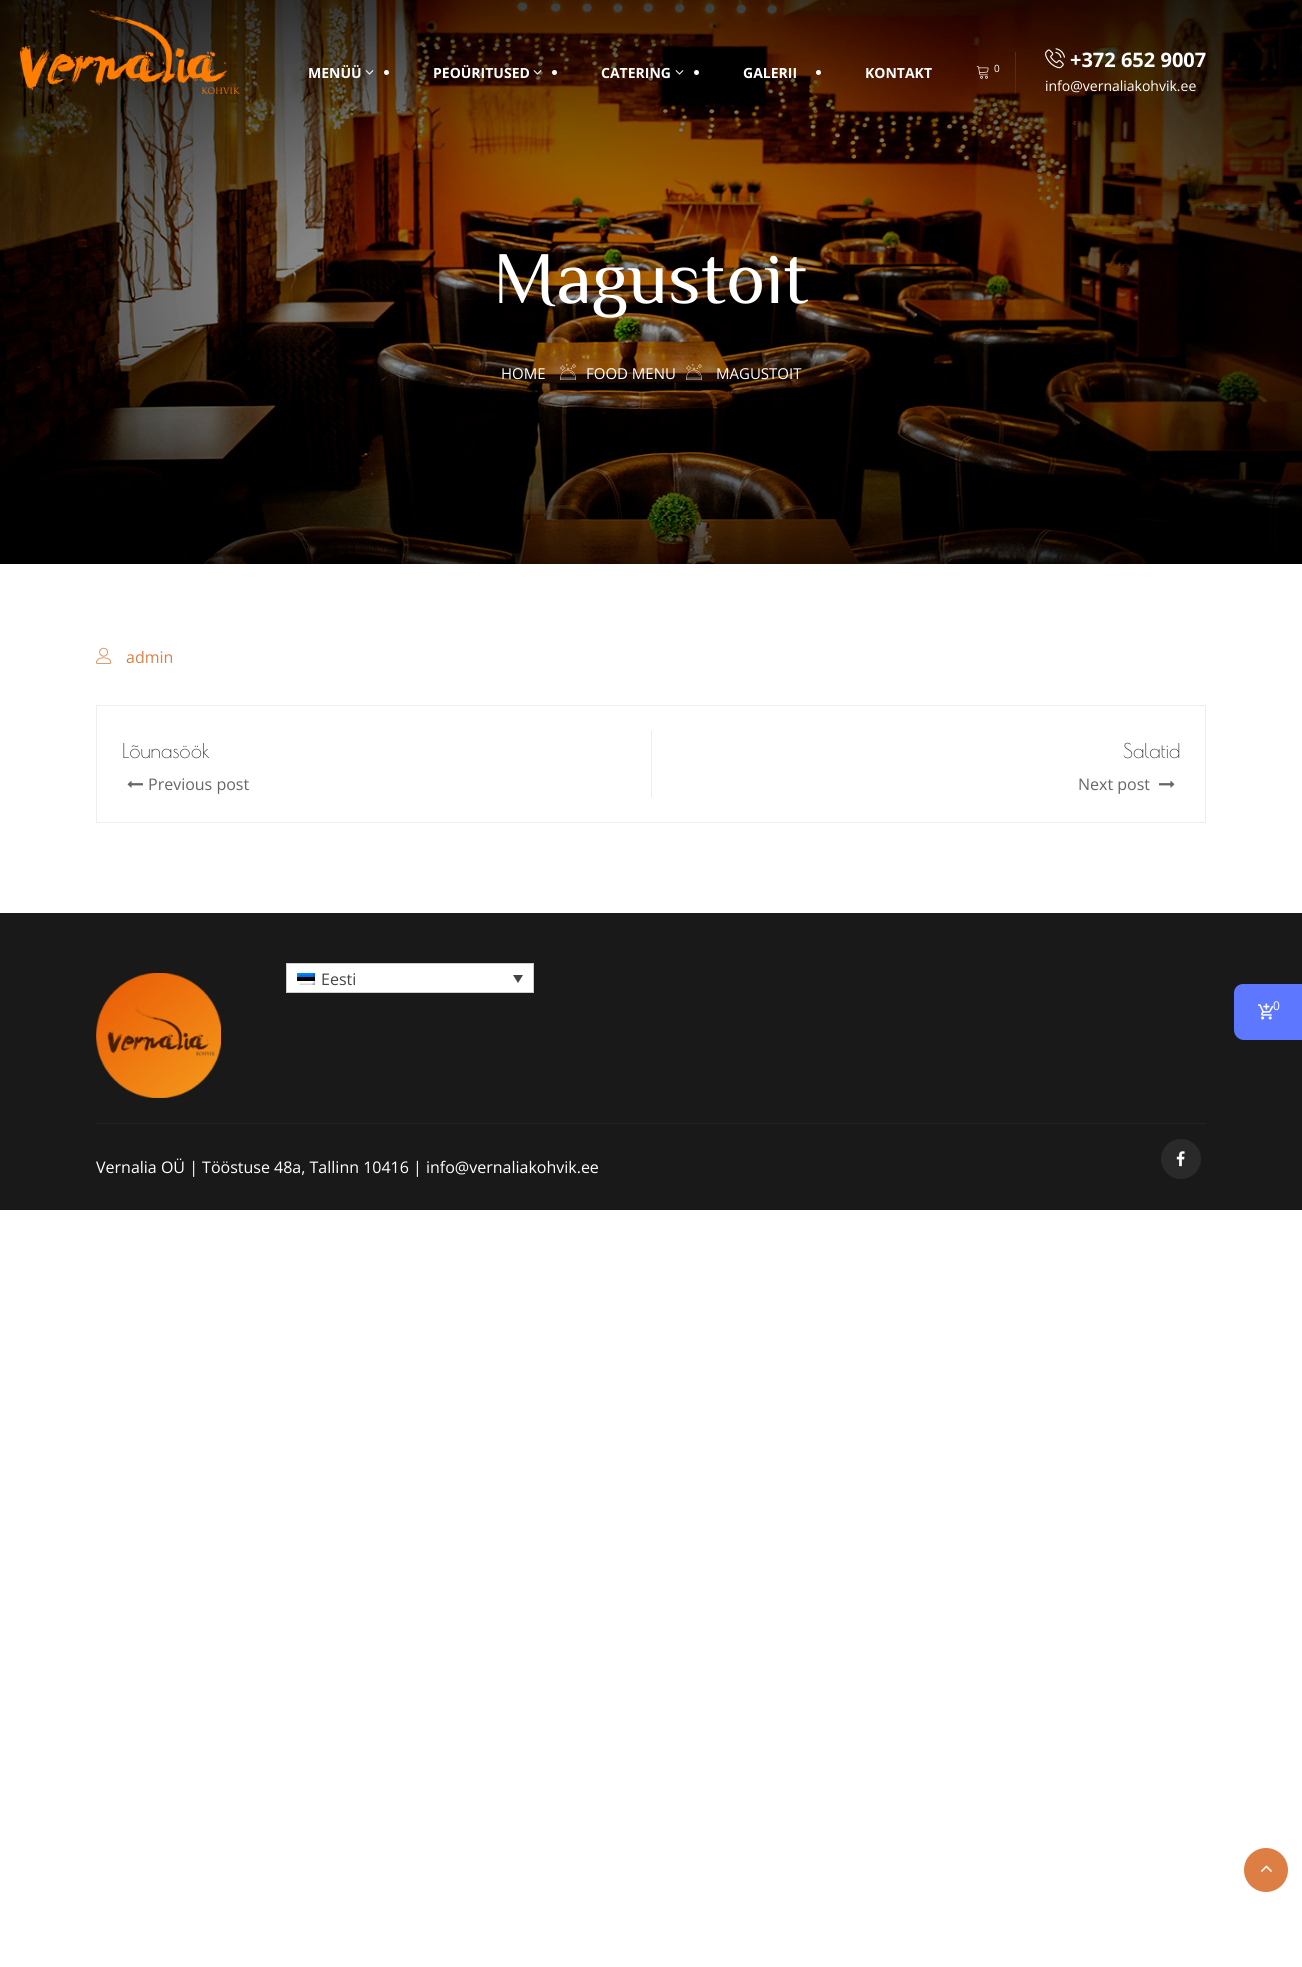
#include <cairo/cairo.h>
#include <math.h>
#include <stddef.h>


static void draw_image(cairo_t *cr, const char *path, double x, double y, double w, double h) {
  cairo_surface_t *image = cairo_image_surface_create_from_png(path);
  cairo_save(cr);
  cairo_set_source_surface(cr, image, x, y);
  cairo_rectangle(cr, x, y, w, h);
  cairo_fill(cr);
  cairo_restore(cr);
  cairo_surface_destroy(image);
}

static void draw(cairo_t *cr) {
  cairo_set_source_rgb(cr, 1, 1, 1);
  cairo_paint(cr);
  draw_image(cr, "images/7.png", 0, 0, 1302, 564);
  draw_image(cr, "images/1.png", 20, 10, 220, 84);
  draw_image(cr, "images/2.png", 365, 70, 9, 5);
  cairo_set_source_rgb(cr, 1, 1, 1);
  cairo_arc(cr, 386.5, 72.5, 2.5, 0, 2 * M_PI);
  cairo_fill(cr);
  draw_image(cr, "images/3.png", 533, 70, 9, 5);
  cairo_arc(cr, 554.5, 72.5, 2.5, 0, 2 * M_PI);
  cairo_fill(cr);
  draw_image(cr, "images/4.png", 675, 70, 9, 5);
  cairo_arc(cr, 696.5, 72.5, 2.5, 0, 2 * M_PI);
  cairo_fill(cr);
  cairo_arc(cr, 818.5, 72.5, 2.5, 0, 2 * M_PI);
  cairo_fill(cr);
  draw_image(cr, "images/5.png", 976, 66, 13, 13);
  cairo_set_source_rgb(cr, 58 / 255.0, 53 / 255.0, 48 / 255.0);
  cairo_rectangle(cr, 1015, 52, 1, 41);
  cairo_fill(cr);
  draw_image(cr, "images/6.png", 1045, 48, 20, 21);
  draw_image(cr, "images/8.png", 560, 364, 16, 16);
  draw_image(cr, "images/9.png", 686, 364, 16, 16);
  draw_image(cr, "images/10.png", 96, 647, 16, 17);
  cairo_rectangle(cr, 96.5, 705.5, 1109, 117);
  cairo_set_source_rgb(cr, 238 / 255.0, 238 / 255.0, 238 / 255.0);
  cairo_set_line_width(cr, 1);
  cairo_stroke(cr);
  draw_image(cr, "images/11.png", 127, 780, 16, 8);
  cairo_rectangle(cr, 651, 731, 1, 66);
  cairo_fill(cr);
  draw_image(cr, "images/12.png", 1159, 780, 16, 8);
  cairo_set_source_rgb(cr, 25 / 255.0, 25 / 255.0, 25 / 255.0);
  cairo_rectangle(cr, 0, 913, 1302, 297);
  cairo_fill(cr);
  draw_image(cr, "images/13.png", 96, 973, 125, 125);
  cairo_set_source_rgb(cr, 1, 1, 1);
  cairo_rectangle(cr, 286.5, 963.5, 247, 29);
  cairo_fill_preserve(cr);
  cairo_set_source_rgb(cr, 205 / 255.0, 205 / 255.0, 205 / 255.0);
  cairo_stroke(cr);
  draw_image(cr, "images/14.png", 297, 973, 18, 12);
  cairo_set_source_rgb(cr, 68 / 255.0, 68 / 255.0, 68 / 255.0);
  cairo_new_path(cr);
  cairo_move_to(cr, 513, 975);
  cairo_line_to(cr, 523, 975);
  cairo_line_to(cr, 518, 983);
  cairo_close_path(cr);
  cairo_fill(cr);
  cairo_set_source_rgb(cr, 37 / 255.0, 36 / 255.0, 36 / 255.0);
  cairo_rectangle(cr, 96, 1123, 1110, 1);
  cairo_fill(cr);
  cairo_set_source_rgb(cr, 42 / 255.0, 42 / 255.0, 42 / 255.0);
  cairo_arc(cr, 1181, 1159, 20, 0, 2 * M_PI);
  cairo_fill(cr);
  draw_image(cr, "images/15.png", 1176, 1151, 9, 16);
  cairo_set_source_rgb(cr, 93 / 255.0, 120 / 255.0, 1);
  cairo_new_path(cr);
  cairo_move_to(cr, 1243, 984);
  cairo_line_to(cr, 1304, 984);
  cairo_line_to(cr, 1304, 1040);
  cairo_line_to(cr, 1244, 1040);
  cairo_curve_to(cr, 1238.5, 1040, 1234, 1035.5, 1234, 1030);
  cairo_line_to(cr, 1234, 993);
  cairo_curve_to(cr, 1234, 988, 1238, 984, 1243, 984);
  cairo_close_path(cr);
  cairo_fill(cr);
  draw_image(cr, "images/16.png", 1258, 1003, 16, 17);
  cairo_set_source_rgb(cr, 221 / 255.0, 127 / 255.0, 68 / 255.0);
  cairo_arc(cr, 1266, 1870, 22, 0, 2 * M_PI);
  cairo_fill(cr);
  draw_image(cr, "images/17.png", 1260, 1865, 12, 7);
  cairo_select_font_face(cr, "Open Sans", CAIRO_FONT_SLANT_NORMAL, CAIRO_FONT_WEIGHT_BOLD);
  cairo_set_font_size(cr, 14);
  cairo_set_source_rgb(cr, 1, 1, 1);
  cairo_move_to(cr, 308, 78);
  cairo_show_text(cr, "MENÜÜ");
  cairo_move_to(cr, 433, 78);
  cairo_show_text(cr, "PEOÜRITUSED");
  cairo_move_to(cr, 601, 78);
  cairo_show_text(cr, "CATERING");
  cairo_move_to(cr, 743, 78);
  cairo_show_text(cr, "GALERII");
  cairo_move_to(cr, 865, 78);
  cairo_show_text(cr, "KONTAKT");
  cairo_select_font_face(cr, "Open Sans", CAIRO_FONT_SLANT_NORMAL, CAIRO_FONT_WEIGHT_NORMAL);
  cairo_set_font_size(cr, 10);
  cairo_move_to(cr, 994, 72);
  cairo_show_text(cr, "0");
  cairo_select_font_face(cr, "Open Sans", CAIRO_FONT_SLANT_NORMAL, CAIRO_FONT_WEIGHT_BOLD);
  cairo_set_font_size(cr, 20);
  cairo_move_to(cr, 1070, 67);
  cairo_show_text(cr, "+372 652 9007");
  cairo_select_font_face(cr, "Open Sans", CAIRO_FONT_SLANT_NORMAL, CAIRO_FONT_WEIGHT_NORMAL);
  cairo_set_font_size(cr, 14);
  cairo_move_to(cr, 1045, 91);
  cairo_show_text(cr, "info@vernaliakohvik.ee");
  cairo_select_font_face(cr, "ZCOOL XiaoWei", CAIRO_FONT_SLANT_NORMAL, CAIRO_FONT_WEIGHT_NORMAL);
  cairo_set_font_size(cr, 74);
  cairo_move_to(cr, 493, 303);
  cairo_show_text(cr, "Magustoit");
  cairo_select_font_face(cr, "Open Sans", CAIRO_FONT_SLANT_NORMAL, CAIRO_FONT_WEIGHT_NORMAL);
  cairo_set_font_size(cr, 15);
  cairo_move_to(cr, 501, 379);
  cairo_show_text(cr, "HOME");
  cairo_move_to(cr, 586, 379);
  cairo_show_text(cr, "FOOD MENU");
  cairo_move_to(cr, 716, 379);
  cairo_show_text(cr, "MAGUSTOIT");
  cairo_set_font_size(cr, 16);
  cairo_set_source_rgb(cr, 221 / 255.0, 127 / 255.0, 68 / 255.0);
  cairo_move_to(cr, 126, 663);
  cairo_show_text(cr, "admin");
  cairo_select_font_face(cr, "Poiret One", CAIRO_FONT_SLANT_NORMAL, CAIRO_FONT_WEIGHT_NORMAL);
  cairo_set_font_size(cr, 20);
  cairo_set_source_rgb(cr, 44 / 255.0, 44 / 255.0, 44 / 255.0);
  cairo_move_to(cr, 122, 758);
  cairo_show_text(cr, "Lõunasöök");
  cairo_select_font_face(cr, "Open Sans", CAIRO_FONT_SLANT_NORMAL, CAIRO_FONT_WEIGHT_NORMAL);
  cairo_set_font_size(cr, 16);
  cairo_set_source_rgb(cr, 102 / 255.0, 102 / 255.0, 102 / 255.0);
  cairo_move_to(cr, 148, 790);
  cairo_show_text(cr, "Previous post");
  cairo_select_font_face(cr, "Poiret One", CAIRO_FONT_SLANT_NORMAL, CAIRO_FONT_WEIGHT_NORMAL);
  cairo_set_font_size(cr, 20);
  cairo_set_source_rgb(cr, 44 / 255.0, 44 / 255.0, 44 / 255.0);
  cairo_move_to(cr, 1123, 758);
  cairo_show_text(cr, "Salatid");
  cairo_select_font_face(cr, "Open Sans", CAIRO_FONT_SLANT_NORMAL, CAIRO_FONT_WEIGHT_NORMAL);
  cairo_set_font_size(cr, 16);
  cairo_set_source_rgb(cr, 102 / 255.0, 102 / 255.0, 102 / 255.0);
  cairo_move_to(cr, 1078, 790);
  cairo_show_text(cr, "Next post");
  cairo_set_source_rgb(cr, 68 / 255.0, 68 / 255.0, 68 / 255.0);
  cairo_move_to(cr, 321, 985);
  cairo_show_text(cr, "Eesti");
  cairo_set_source_rgb(cr, 1, 1, 1);
  cairo_move_to(cr, 96, 1173);
  cairo_show_text(cr, "Vernalia OÜ | Tööstuse 48a, Tallinn 10416 | info@vernaliakohvik.ee");
  cairo_set_font_size(cr, 12);
  cairo_move_to(cr, 1273, 1010);
  cairo_show_text(cr, "0");
}

int main(void) {
  cairo_surface_t *surface = cairo_image_surface_create(CAIRO_FORMAT_RGB24, 1302, 1967);
  cairo_t *cr = cairo_create(surface);
  cairo_font_options_t *options = cairo_font_options_create();
  cairo_font_options_set_hint_metrics(options, CAIRO_HINT_METRICS_OFF);
  cairo_font_options_set_hint_style(options, CAIRO_HINT_STYLE_NONE);
  cairo_set_font_options(cr, options);
  cairo_set_miter_limit(cr, 4);
  draw(cr);
  cairo_surface_write_to_png(surface, "out.png");
  cairo_font_options_destroy(options);
  cairo_destroy(cr);
  cairo_surface_destroy(surface);
  return 0;
}
